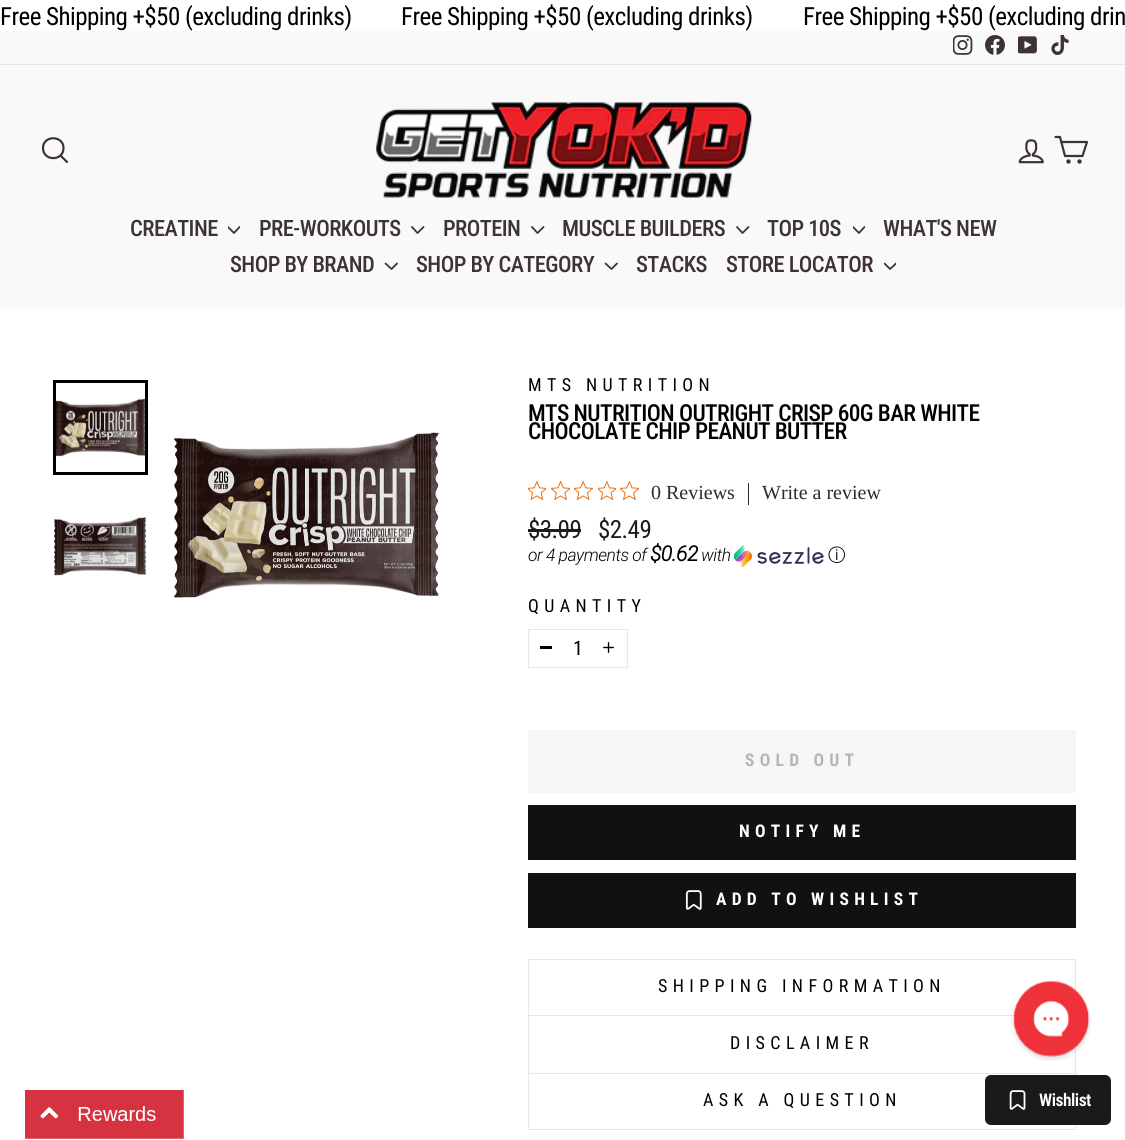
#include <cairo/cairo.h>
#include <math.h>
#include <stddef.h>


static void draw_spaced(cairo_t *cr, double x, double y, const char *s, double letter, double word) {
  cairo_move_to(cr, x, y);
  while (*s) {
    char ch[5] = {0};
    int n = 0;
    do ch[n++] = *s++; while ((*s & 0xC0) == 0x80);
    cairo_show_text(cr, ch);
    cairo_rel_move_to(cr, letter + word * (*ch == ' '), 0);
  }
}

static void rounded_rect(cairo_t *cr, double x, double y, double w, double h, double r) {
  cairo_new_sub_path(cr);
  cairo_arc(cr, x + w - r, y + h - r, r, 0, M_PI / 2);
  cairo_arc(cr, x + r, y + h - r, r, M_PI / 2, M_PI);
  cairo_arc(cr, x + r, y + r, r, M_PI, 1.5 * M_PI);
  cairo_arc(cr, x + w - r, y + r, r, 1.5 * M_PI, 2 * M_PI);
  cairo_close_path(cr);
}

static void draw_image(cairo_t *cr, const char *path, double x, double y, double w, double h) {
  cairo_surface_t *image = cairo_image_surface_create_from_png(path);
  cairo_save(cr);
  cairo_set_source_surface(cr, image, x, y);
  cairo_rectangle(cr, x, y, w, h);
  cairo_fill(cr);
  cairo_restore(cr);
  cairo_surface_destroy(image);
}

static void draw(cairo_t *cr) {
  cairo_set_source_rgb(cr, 1, 1, 1);
  cairo_paint(cr);
  cairo_set_source_rgb(cr, 249 / 255.0, 249 / 255.0, 249 / 255.0);
  cairo_rectangle(cr, 0, 31, 1125, 33);
  cairo_fill(cr);
  draw_image(cr, "images/1.png", 953, 35, 20, 20);
  draw_image(cr, "images/2.png", 985, 35, 20, 20);
  draw_image(cr, "images/3.png", 1018, 36, 19, 18);
  draw_image(cr, "images/4.png", 1051, 35, 18, 20);
  cairo_rectangle(cr, 0, 65, 1125, 244);
  cairo_fill(cr);
  cairo_set_source_rgb(cr, 230 / 255.0, 229 / 255.0, 229 / 255.0);
  cairo_rectangle(cr, 0, 64, 1126, 1);
  cairo_fill(cr);
  cairo_new_path(cr);
  cairo_move_to(cr, 63.5, 148);
  cairo_curve_to(cr, 63.5, 161.5, 43, 161.5, 43, 148);
  cairo_curve_to(cr, 43, 135, 63.5, 135, 63.5, 148);
  cairo_close_path(cr);
  cairo_move_to(cr, 67, 162);
  cairo_line_to(cr, 60.5, 155.5);
  cairo_set_source_rgb(cr, 62 / 255.0, 51 / 255.0, 51 / 255.0);
  cairo_set_line_width(cr, 2.2);
  cairo_set_line_cap(cr, CAIRO_LINE_CAP_ROUND);
  cairo_set_line_join(cr, CAIRO_LINE_JOIN_ROUND);
  cairo_stroke(cr);
  draw_image(cr, "images/5.png", 376, 102, 376, 96);
  draw_image(cr, "images/6.png", 1018, 139, 26, 25);
  cairo_new_path(cr);
  cairo_move_to(cr, 1061.5, 142);
  cairo_line_to(cr, 1087, 142);
  cairo_line_to(cr, 1082.5, 156);
  cairo_line_to(cr, 1065, 156);
  cairo_line_to(cr, 1060, 137);
  cairo_line_to(cr, 1055.5, 137);
  cairo_stroke(cr);
  cairo_arc(cr, 1068.5, 161.5, 1.1, 0, 2 * M_PI);
  cairo_set_line_cap(cr, CAIRO_LINE_CAP_BUTT);
  cairo_set_line_join(cr, CAIRO_LINE_JOIN_MITER);
  cairo_stroke(cr);
  cairo_arc(cr, 1079.5, 161.5, 1.1, 0, 2 * M_PI);
  cairo_stroke(cr);
  cairo_save(cr);
  cairo_rectangle(cr, 228, 224, 12, 12);
  cairo_clip(cr);
  cairo_new_path(cr);
  cairo_move_to(cr, 228, 227);
  cairo_line_to(cr, 234, 233);
  cairo_line_to(cr, 239.5, 227);
  cairo_set_line_width(cr, 1.8);
  cairo_set_line_cap(cr, CAIRO_LINE_CAP_ROUND);
  cairo_set_line_join(cr, CAIRO_LINE_JOIN_ROUND);
  cairo_stroke(cr);
  cairo_restore(cr);
  cairo_new_path(cr);
  cairo_move_to(cr, 412, 227);
  cairo_line_to(cr, 417.5, 233);
  cairo_line_to(cr, 423.5, 227);
  cairo_set_line_width(cr, 1.8);
  cairo_set_line_cap(cr, CAIRO_LINE_CAP_ROUND);
  cairo_set_line_join(cr, CAIRO_LINE_JOIN_ROUND);
  cairo_stroke(cr);
  cairo_new_path(cr);
  cairo_move_to(cr, 532, 227);
  cairo_line_to(cr, 537.5, 233);
  cairo_line_to(cr, 543.5, 227);
  cairo_stroke(cr);
  cairo_new_path(cr);
  cairo_move_to(cr, 737, 227);
  cairo_line_to(cr, 742.5, 233);
  cairo_line_to(cr, 748.5, 227);
  cairo_stroke(cr);
  cairo_save(cr);
  cairo_rectangle(cr, 853, 224, 12, 12);
  cairo_clip(cr);
  cairo_new_path(cr);
  cairo_move_to(cr, 853, 227);
  cairo_line_to(cr, 859, 233);
  cairo_line_to(cr, 864.5, 227);
  cairo_stroke(cr);
  cairo_restore(cr);
  cairo_new_path(cr);
  cairo_move_to(cr, 385.5, 263.5);
  cairo_line_to(cr, 391.5, 269);
  cairo_line_to(cr, 397, 263.5);
  cairo_stroke(cr);
  cairo_new_path(cr);
  cairo_move_to(cr, 605.5, 263.5);
  cairo_line_to(cr, 611.5, 269);
  cairo_line_to(cr, 617, 263.5);
  cairo_stroke(cr);
  cairo_save(cr);
  cairo_rectangle(cr, 884, 260, 12, 13);
  cairo_clip(cr);
  cairo_new_path(cr);
  cairo_move_to(cr, 884.5, 263.5);
  cairo_line_to(cr, 890, 269);
  cairo_line_to(cr, 896, 263.5);
  cairo_stroke(cr);
  cairo_restore(cr);
  draw_image(cr, "images/7.png", 56, 398, 89, 59);
  cairo_rectangle(cr, 54.5, 381.5, 92, 92);
  cairo_set_source_rgb(cr, 0, 0, 0);
  cairo_set_line_width(cr, 3);
  cairo_set_line_cap(cr, CAIRO_LINE_CAP_BUTT);
  cairo_set_line_join(cr, CAIRO_LINE_JOIN_MITER);
  cairo_stroke(cr);
  draw_image(cr, "images/8.png", 54, 516, 93, 60);
  draw_image(cr, "images/9.png", 173, 432, 267, 166);
  draw_image(cr, "images/10.png", 528, 481, 18, 19);
  draw_image(cr, "images/11.png", 551, 481, 19, 19);
  draw_image(cr, "images/12.png", 574, 481, 19, 19);
  draw_image(cr, "images/10.png", 598, 481, 18, 19);
  draw_image(cr, "images/13.png", 620, 481, 19, 19);
  cairo_set_source_rgb(cr, 44 / 255.0, 44 / 255.0, 44 / 255.0);
  cairo_rectangle(cr, 748, 483, 1, 22);
  cairo_fill(cr);
  cairo_set_source_rgb(cr, 28 / 255.0, 29 / 255.0, 29 / 255.0);
  cairo_rectangle(cr, 528, 529, 53, 3);
  cairo_fill(cr);
  draw_image(cr, "images/14.png", 734, 545, 90, 23);
  cairo_rectangle(cr, 528.5, 629.5, 99, 38);
  cairo_set_source_rgb(cr, 232 / 255.0, 232 / 255.0, 225 / 255.0);
  cairo_set_line_width(cr, 1);
  cairo_stroke(cr);
  cairo_set_source_rgb(cr, 0, 0, 0);
  cairo_rectangle(cr, 540, 646, 12, 3);
  cairo_fill(cr);
  draw_image(cr, "images/15.png", 603, 642, 11, 11);
  cairo_set_source_rgb(cr, 246 / 255.0, 246 / 255.0, 246 / 255.0);
  cairo_rectangle(cr, 528, 730, 548, 63);
  cairo_fill(cr);
  cairo_set_source_rgb(cr, 17 / 255.0, 17 / 255.0, 17 / 255.0);
  cairo_rectangle(cr, 528, 805, 548, 55);
  cairo_fill(cr);
  cairo_rectangle(cr, 528, 873, 548, 55);
  cairo_fill(cr);
  draw_image(cr, "images/16.png", 685, 890, 17, 20);
  cairo_set_source_rgb(cr, 232 / 255.0, 232 / 255.0, 225 / 255.0);
  cairo_rectangle(cr, 528, 1015, 487, 1);
  cairo_fill(cr);
  cairo_rectangle(cr, 528, 959, 548, 1);
  cairo_fill(cr);
  cairo_rectangle(cr, 1075, 959, 1, 33);
  cairo_fill(cr);
  cairo_rectangle(cr, 528, 959, 1, 56);
  cairo_fill(cr);
  cairo_new_path(cr);
  cairo_move_to(cr, 1042, 984);
  cairo_line_to(cr, 1049, 991);
  cairo_line_to(cr, 1056, 984);
  cairo_set_source_rgb(cr, 0, 0, 0);
  cairo_set_line_width(cr, 2.1);
  cairo_set_line_cap(cr, CAIRO_LINE_CAP_ROUND);
  cairo_set_line_join(cr, CAIRO_LINE_JOIN_ROUND);
  cairo_stroke(cr);
  cairo_set_source_rgb(cr, 232 / 255.0, 232 / 255.0, 225 / 255.0);
  cairo_rectangle(cr, 528, 1073, 548, 1);
  cairo_fill(cr);
  cairo_rectangle(cr, 1075, 1046, 1, 27);
  cairo_fill(cr);
  cairo_rectangle(cr, 528, 1016, 1, 57);
  cairo_fill(cr);
  cairo_rectangle(cr, 528, 1129, 548, 1);
  cairo_fill(cr);
  cairo_rectangle(cr, 1075, 1074, 1, 55);
  cairo_fill(cr);
  cairo_rectangle(cr, 528, 1074, 1, 55);
  cairo_fill(cr);
  cairo_set_source_rgb(cr, 217 / 255.0, 217 / 255.0, 217 / 255.0);
  cairo_rectangle(cr, 1125, 0, 1, 1140);
  cairo_fill(cr);
  draw_image(cr, "images/17.png", 1011, 980, 80, 81);
  draw_image(cr, "images/18.png", 25, 1090, 159, 49);
  cairo_set_source_rgb(cr, 26 / 255.0, 26 / 255.0, 26 / 255.0);
  rounded_rect(cr, 985, 1075, 126, 50, 6);
  cairo_fill(cr);
  draw_image(cr, "images/19.png", 1009, 1090, 17, 20);
  cairo_select_font_face(cr, "Roboto Condensed", CAIRO_FONT_SLANT_NORMAL, CAIRO_FONT_WEIGHT_NORMAL);
  cairo_set_font_size(cr, 25);
  cairo_set_source_rgb(cr, 0, 0, 0);
  draw_spaced(cr, 0, 25, "Free Shipping +$50 (excluding drinks)", -0.55, 0);
  draw_spaced(cr, 401, 25, "Free Shipping +$50 (excluding drinks)", -0.55, 0);
  draw_spaced(cr, 803, 25, "Free Shipping +$50 (excluding drin", -0.55, 0);
  cairo_select_font_face(cr, "Roboto Condensed Medium", CAIRO_FONT_SLANT_NORMAL, CAIRO_FONT_WEIGHT_NORMAL);
  cairo_set_font_size(cr, 22.5);
  cairo_set_source_rgb(cr, 62 / 255.0, 51 / 255.0, 51 / 255.0);
  draw_spaced(cr, 130, 236, "CREATINE", -0.55, 0);
  draw_spaced(cr, 259, 236, "PRE-WORKOUTS", -0.55, 0);
  draw_spaced(cr, 443, 236, "PROTEIN", -0.55, 0);
  draw_spaced(cr, 562, 236, "MUSCLE BUILDERS", -0.55, 0);
  draw_spaced(cr, 767, 236, "TOP 10S", -0.55, 0);
  draw_spaced(cr, 883, 236, "WHAT'S NEW", -0.55, 0);
  draw_spaced(cr, 230, 272, "SHOP BY BRAND", -0.55, 0);
  draw_spaced(cr, 416, 272, "SHOP BY CATEGORY", -0.55, 0);
  draw_spaced(cr, 636, 272, "STACKS", -0.55, 0);
  draw_spaced(cr, 726, 272, "STORE LOCATOR", -0.55, 0);
  cairo_select_font_face(cr, "Roboto Condensed", CAIRO_FONT_SLANT_NORMAL, CAIRO_FONT_WEIGHT_NORMAL);
  cairo_set_font_size(cr, 18);
  cairo_set_source_rgb(cr, 0, 0, 0);
  draw_spaced(cr, 528, 391, "MTS NUTRITION", 5.4, 0);
  cairo_select_font_face(cr, "Roboto Condensed Medium", CAIRO_FONT_SLANT_NORMAL, CAIRO_FONT_WEIGHT_NORMAL);
  cairo_set_font_size(cr, 23.4);
  draw_spaced(cr, 528, 421, "MTS NUTRITION OUTRIGHT CRISP 60G BAR WHITE", -0.6, 0);
  draw_spaced(cr, 528, 439, "CHOCOLATE CHIP PEANUT BUTTER", -0.6, 0);
  cairo_select_font_face(cr, "Liberation Serif", CAIRO_FONT_SLANT_NORMAL, CAIRO_FONT_WEIGHT_NORMAL);
  cairo_set_font_size(cr, 20);
  cairo_set_source_rgb(cr, 44 / 255.0, 44 / 255.0, 44 / 255.0);
  cairo_move_to(cr, 651, 499);
  cairo_show_text(cr, "0 Reviews");
  cairo_move_to(cr, 762, 499);
  cairo_show_text(cr, "Write a review");
  cairo_select_font_face(cr, "Roboto Condensed", CAIRO_FONT_SLANT_NORMAL, CAIRO_FONT_WEIGHT_NORMAL);
  cairo_set_font_size(cr, 25);
  cairo_set_source_rgb(cr, 28 / 255.0, 29 / 255.0, 29 / 255.0);
  draw_spaced(cr, 528, 538, "$3.09", -0.55, 0);
  draw_spaced(cr, 598, 538, "$2.49", -0.55, 0);
  cairo_select_font_face(cr, "Roboto Light", CAIRO_FONT_SLANT_ITALIC, CAIRO_FONT_WEIGHT_NORMAL);
  cairo_set_font_size(cr, 17.5);
  cairo_set_source_rgb(cr, 0, 0, 0);
  draw_spaced(cr, 528, 561, "or 4 payments of", -0.55, 0);
  cairo_select_font_face(cr, "Roboto", CAIRO_FONT_SLANT_ITALIC, CAIRO_FONT_WEIGHT_BOLD);
  cairo_set_font_size(cr, 21);
  draw_spaced(cr, 650, 561, "$0.62", -0.55, 0);
  cairo_select_font_face(cr, "Roboto Light", CAIRO_FONT_SLANT_ITALIC, CAIRO_FONT_WEIGHT_NORMAL);
  cairo_set_font_size(cr, 17.5);
  draw_spaced(cr, 701, 561, "with", -0.55, 0);
  cairo_select_font_face(cr, "WenQuanYi Zen Hei Medium", CAIRO_FONT_SLANT_NORMAL, CAIRO_FONT_WEIGHT_NORMAL);
  draw_spaced(cr, 828, 561, "ⓘ", -0.55, 0);
  cairo_select_font_face(cr, "Roboto Condensed", CAIRO_FONT_SLANT_NORMAL, CAIRO_FONT_WEIGHT_NORMAL);
  cairo_set_font_size(cr, 18);
  draw_spaced(cr, 528, 612, "QUANTITY", 5.4, 0);
  cairo_set_font_size(cr, 20);
  cairo_move_to(cr, 573, 655);
  cairo_show_text(cr, "1");
  cairo_select_font_face(cr, "Roboto Condensed", CAIRO_FONT_SLANT_NORMAL, CAIRO_FONT_WEIGHT_BOLD);
  cairo_set_font_size(cr, 17.5);
  cairo_set_source_rgb(cr, 182 / 255.0, 182 / 255.0, 182 / 255.0);
  draw_spaced(cr, 745, 766, "SOLD OUT", 5.25, 0);
  cairo_set_source_rgb(cr, 1, 1, 1);
  draw_spaced(cr, 739, 837, "NOTIFY ME", 5.25, 0);
  draw_spaced(cr, 716, 905, "ADD TO WISHLIST", 5.25, 0);
  cairo_select_font_face(cr, "Roboto Condensed", CAIRO_FONT_SLANT_NORMAL, CAIRO_FONT_WEIGHT_NORMAL);
  cairo_set_font_size(cr, 18);
  cairo_set_source_rgb(cr, 0, 0, 0);
  draw_spaced(cr, 658, 992, "SHIPPING INFORMATION", 5.4, 0);
  draw_spaced(cr, 730, 1049, "DISCLAIMER", 5.4, 0);
  draw_spaced(cr, 703, 1106, "ASK A QUESTION", 5.4, 0);
  cairo_select_font_face(cr, "Roboto Condensed SemiBold", CAIRO_FONT_SLANT_NORMAL, CAIRO_FONT_WEIGHT_NORMAL);
  cairo_set_font_size(cr, 17.5);
  cairo_set_source_rgb(cr, 1, 1, 1);
  draw_spaced(cr, 1039, 1106, "Wishlist", -0.5, 0);
}

int main(void) {
  cairo_surface_t *surface = cairo_image_surface_create(CAIRO_FORMAT_RGB24, 1126, 1140);
  cairo_t *cr = cairo_create(surface);
  cairo_font_options_t *options = cairo_font_options_create();
  cairo_font_options_set_hint_metrics(options, CAIRO_HINT_METRICS_OFF);
  cairo_font_options_set_hint_style(options, CAIRO_HINT_STYLE_NONE);
  cairo_set_font_options(cr, options);
  cairo_set_miter_limit(cr, 4);
  draw(cr);
  cairo_surface_write_to_png(surface, "out.png");
  cairo_font_options_destroy(options);
  cairo_destroy(cr);
  cairo_surface_destroy(surface);
  return 0;
}
